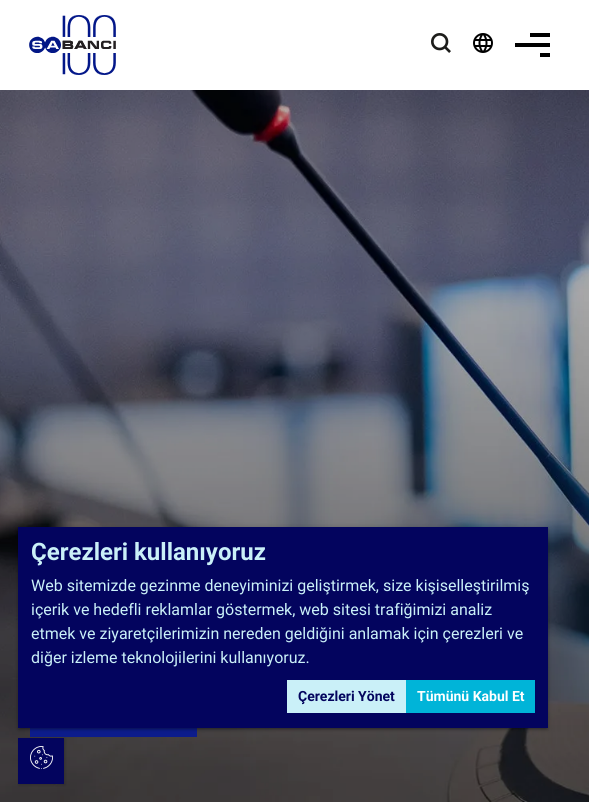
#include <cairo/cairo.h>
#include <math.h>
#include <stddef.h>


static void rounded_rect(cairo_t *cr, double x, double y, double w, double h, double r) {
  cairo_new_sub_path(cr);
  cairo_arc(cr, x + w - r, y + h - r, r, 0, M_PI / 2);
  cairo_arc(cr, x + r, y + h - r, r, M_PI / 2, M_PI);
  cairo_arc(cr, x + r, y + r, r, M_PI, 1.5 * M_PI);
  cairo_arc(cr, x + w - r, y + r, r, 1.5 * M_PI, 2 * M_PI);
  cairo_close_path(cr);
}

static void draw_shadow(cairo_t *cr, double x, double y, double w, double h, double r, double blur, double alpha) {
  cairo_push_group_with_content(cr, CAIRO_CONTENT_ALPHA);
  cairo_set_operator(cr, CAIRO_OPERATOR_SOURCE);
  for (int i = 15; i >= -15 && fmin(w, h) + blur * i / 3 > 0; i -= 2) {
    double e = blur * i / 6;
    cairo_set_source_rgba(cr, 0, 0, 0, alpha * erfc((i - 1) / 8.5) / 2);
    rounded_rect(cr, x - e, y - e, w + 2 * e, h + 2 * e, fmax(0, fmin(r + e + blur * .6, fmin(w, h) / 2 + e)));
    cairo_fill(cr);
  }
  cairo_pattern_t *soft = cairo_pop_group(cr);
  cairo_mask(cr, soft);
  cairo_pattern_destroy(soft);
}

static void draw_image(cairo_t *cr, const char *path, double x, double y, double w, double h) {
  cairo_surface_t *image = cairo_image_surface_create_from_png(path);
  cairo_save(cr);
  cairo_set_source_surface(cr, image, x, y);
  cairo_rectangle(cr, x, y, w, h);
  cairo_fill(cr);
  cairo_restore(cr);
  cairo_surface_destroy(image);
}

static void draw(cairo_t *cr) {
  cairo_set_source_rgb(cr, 1, 1, 1);
  cairo_paint(cr);
  draw_image(cr, "images/1.png", 29, 15, 87, 60);
  draw_image(cr, "images/2.png", 431, 33, 20, 20);
  draw_image(cr, "images/3.png", 473, 33, 20, 20);
  cairo_set_source_rgb(cr, 0, 0, 0);
  cairo_rectangle(cr, 530, 33, 20, 4);
  cairo_fill(cr);
  cairo_rectangle(cr, 515, 43, 35, 4);
  cairo_fill(cr);
  cairo_rectangle(cr, 540, 53, 10, 4);
  cairo_fill(cr);
  draw_image(cr, "images/4.png", 0, 90, 589, 712);
  cairo_set_source_rgb(cr, 12 / 255.0, 28 / 255.0, 140 / 255.0);
  cairo_rectangle(cr, 30, 728, 167, 9);
  cairo_fill(cr);
  cairo_set_source_rgb(cr, 0, 0, 0);
  draw_shadow(cr, 20, 532, 526, 197, 0, 0.5, 0.12);
  draw_shadow(cr, 18, 529, 530, 201, 0, 1, 0.14);
  draw_shadow(cr, 18, 528, 530, 201, 0, 2.5, 0.2);
  cairo_set_source_rgb(cr, 3 / 255.0, 4 / 255.0, 94 / 255.0);
  cairo_rectangle(cr, 18, 527, 530, 201);
  cairo_fill(cr);
  cairo_set_source_rgb(cr, 202 / 255.0, 240 / 255.0, 248 / 255.0);
  cairo_rectangle(cr, 287, 680, 119, 33);
  cairo_fill(cr);
  cairo_set_source_rgb(cr, 0, 180 / 255.0, 216 / 255.0);
  cairo_rectangle(cr, 406, 680, 129, 33);
  cairo_fill(cr);
  cairo_set_source_rgb(cr, 0, 0, 0);
  draw_shadow(cr, 19, 739, 46, 46, 0, 1.5, 0.2);
  cairo_set_source_rgb(cr, 3 / 255.0, 4 / 255.0, 94 / 255.0);
  cairo_rectangle(cr, 18, 738, 46, 46);
  cairo_fill(cr);
  draw_image(cr, "images/5.png", 30, 746, 23, 23);
  cairo_select_font_face(cr, "Roboto", CAIRO_FONT_SLANT_NORMAL, CAIRO_FONT_WEIGHT_BOLD);
  cairo_set_font_size(cr, 24);
  cairo_set_source_rgb(cr, 202 / 255.0, 240 / 255.0, 248 / 255.0);
  cairo_move_to(cr, 31, 560);
  cairo_show_text(cr, "Çerezleri kullanıyoruz");
  cairo_select_font_face(cr, "Roboto", CAIRO_FONT_SLANT_NORMAL, CAIRO_FONT_WEIGHT_NORMAL);
  cairo_set_font_size(cr, 16);
  cairo_move_to(cr, 31, 591);
  cairo_show_text(cr, "Web sitemizde gezinme deneyiminizi geliştirmek, size kişiselleştirilmiş");
  cairo_move_to(cr, 31, 615);
  cairo_show_text(cr, "içerik ve hedefli reklamlar göstermek, web sitesi trafiğimizi analiz");
  cairo_move_to(cr, 31, 639);
  cairo_show_text(cr, "etmek ve ziyaretçilerimizin nereden geldiğini anlamak için çerezleri ve");
  cairo_move_to(cr, 31, 663);
  cairo_show_text(cr, "diğer izleme teknolojilerini kullanıyoruz.");
  cairo_select_font_face(cr, "Roboto", CAIRO_FONT_SLANT_NORMAL, CAIRO_FONT_WEIGHT_BOLD);
  cairo_set_font_size(cr, 14);
  cairo_set_source_rgb(cr, 3 / 255.0, 4 / 255.0, 94 / 255.0);
  cairo_move_to(cr, 298, 701);
  cairo_show_text(cr, "Çerezleri Yönet");
  cairo_set_source_rgb(cr, 1, 1, 1);
  cairo_move_to(cr, 417, 701);
  cairo_show_text(cr, "Tümünü Kabul Et");
}

int main(void) {
  cairo_surface_t *surface = cairo_image_surface_create(CAIRO_FORMAT_RGB24, 589, 802);
  cairo_t *cr = cairo_create(surface);
  cairo_font_options_t *options = cairo_font_options_create();
  cairo_font_options_set_hint_metrics(options, CAIRO_HINT_METRICS_OFF);
  cairo_font_options_set_hint_style(options, CAIRO_HINT_STYLE_NONE);
  cairo_set_font_options(cr, options);
  cairo_set_miter_limit(cr, 4);
  draw(cr);
  cairo_surface_write_to_png(surface, "out.png");
  cairo_font_options_destroy(options);
  cairo_destroy(cr);
  cairo_surface_destroy(surface);
  return 0;
}
